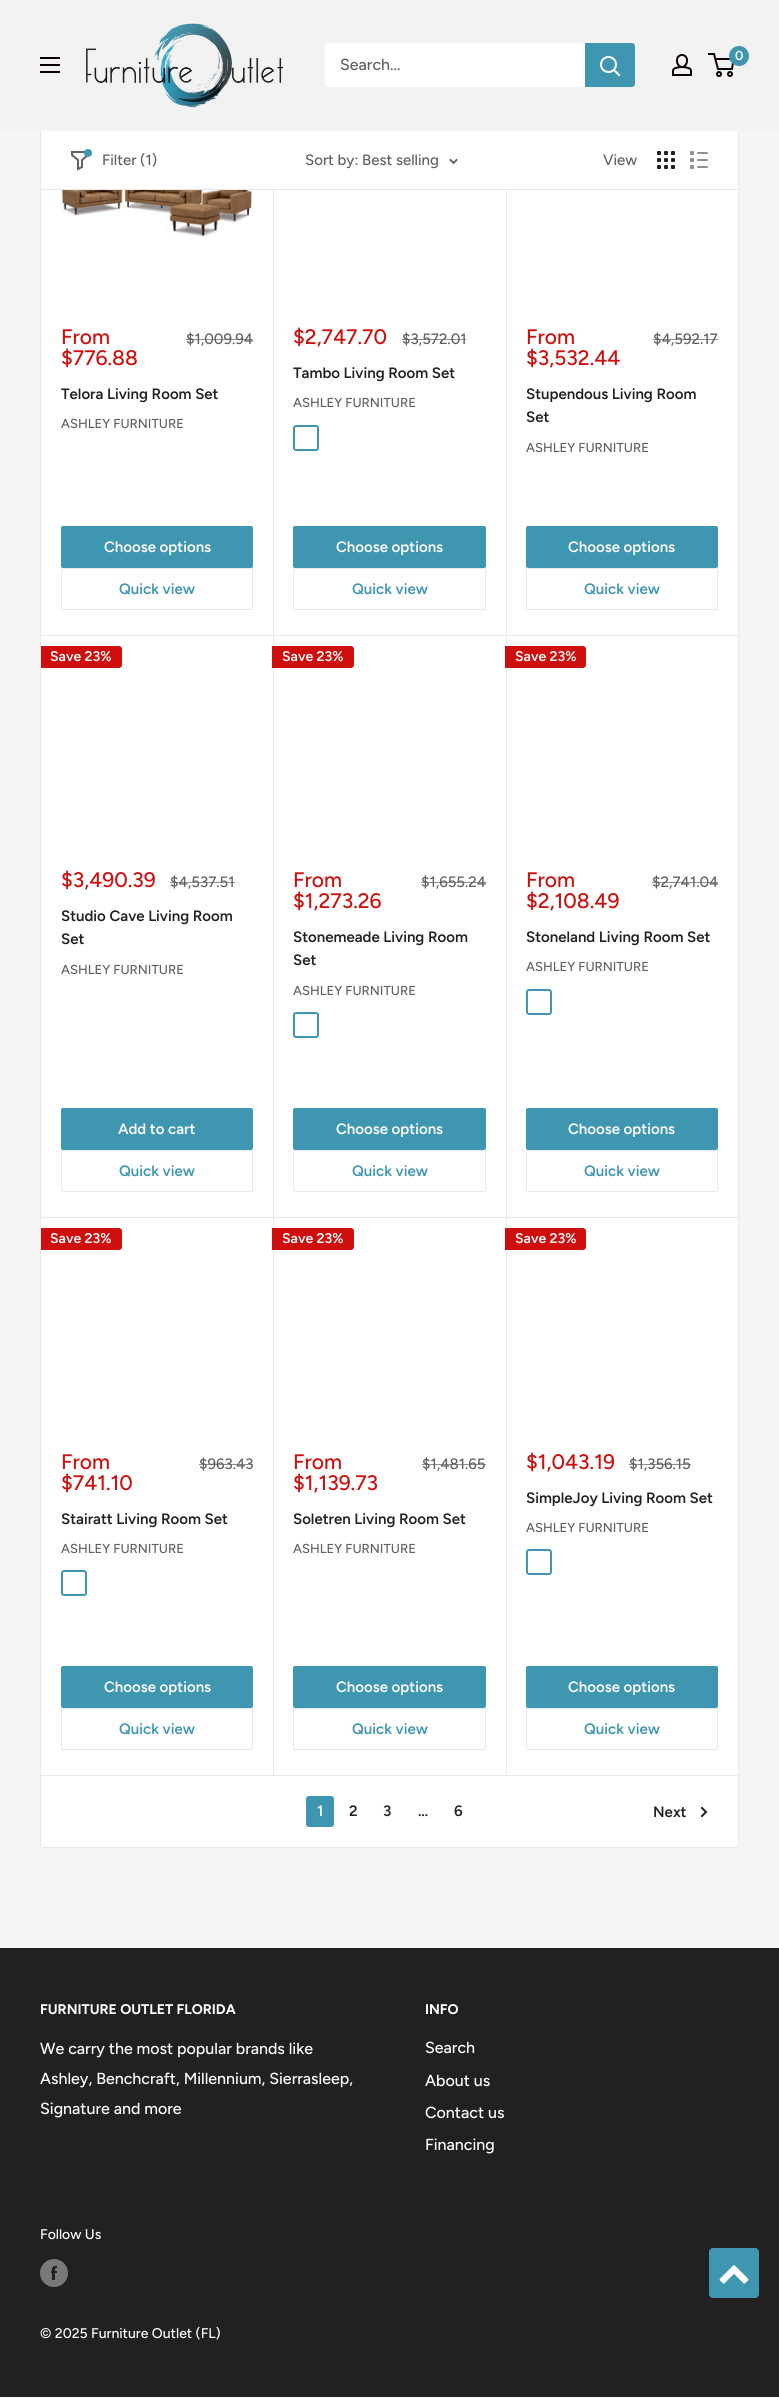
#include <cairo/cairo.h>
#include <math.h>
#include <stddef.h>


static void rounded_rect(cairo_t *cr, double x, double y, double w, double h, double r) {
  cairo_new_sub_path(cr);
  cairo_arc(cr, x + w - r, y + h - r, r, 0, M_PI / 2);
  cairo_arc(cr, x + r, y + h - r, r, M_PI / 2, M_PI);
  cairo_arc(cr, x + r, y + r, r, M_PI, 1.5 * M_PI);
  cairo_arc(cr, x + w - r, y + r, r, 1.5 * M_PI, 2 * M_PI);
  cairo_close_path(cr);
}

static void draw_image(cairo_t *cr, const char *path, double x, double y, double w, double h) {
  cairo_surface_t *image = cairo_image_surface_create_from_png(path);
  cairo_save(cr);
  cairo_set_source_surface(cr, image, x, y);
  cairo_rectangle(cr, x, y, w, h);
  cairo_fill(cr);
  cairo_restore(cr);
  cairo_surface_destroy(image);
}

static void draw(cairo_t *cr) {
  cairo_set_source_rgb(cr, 245 / 255.0, 245 / 255.0, 245 / 255.0);
  cairo_paint(cr);
  cairo_set_source_rgb(cr, 1, 1, 1);
  rounded_rect(cr, 40.5, -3.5, 698, 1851, 2.5);
  cairo_fill_preserve(cr);
  cairo_set_source_rgb(cr, 232 / 255.0, 232 / 255.0, 232 / 255.0);
  cairo_set_line_width(cr, 1);
  cairo_stroke(cr);
  cairo_set_source_rgb(cr, 242 / 255.0, 242 / 255.0, 242 / 255.0);
  cairo_rectangle(cr, 0, 0, 779, 131);
  cairo_fill(cr);
  draw_image(cr, "images/1.png", 86, 23, 198, 85);
  draw_image(cr, "images/2.png", 672, 54, 20, 22);
  cairo_arc(cr, 719, 74, 2, 0, 2 * M_PI);
  cairo_set_source_rgb(cr, 14 / 255.0, 1 / 255.0, 3 / 255.0);
  cairo_set_line_width(cr, 2);
  cairo_stroke(cr);
  cairo_arc(cr, 730, 74, 2, 0, 2 * M_PI);
  cairo_stroke(cr);
  cairo_new_path(cr);
  cairo_move_to(cr, 715.5, 59);
  cairo_line_to(cr, 733.5, 59);
  cairo_line_to(cr, 732, 69);
  cairo_line_to(cr, 718, 69);
  cairo_line_to(cr, 714, 54);
  cairo_line_to(cr, 708, 54);
  cairo_stroke(cr);
  cairo_set_source_rgb(cr, 63 / 255.0, 150 / 255.0, 177 / 255.0);
  cairo_arc(cr, 739, 56, 10, 0, 2 * M_PI);
  cairo_fill(cr);
  draw_image(cr, "images/3.png", 40, 57, 20, 16);
  cairo_set_source_rgb(cr, 1, 1, 1);
  rounded_rect(cr, 325, 43, 310, 44, 3);
  cairo_fill(cr);
  cairo_set_source_rgb(cr, 63 / 255.0, 150 / 255.0, 177 / 255.0);
  cairo_new_path(cr);
  cairo_move_to(cr, 585, 43);
  cairo_line_to(cr, 632, 43);
  cairo_curve_to(cr, 633.5, 43, 635, 44.5, 635, 46);
  cairo_line_to(cr, 635, 84);
  cairo_curve_to(cr, 635, 85.5, 633.5, 87, 632, 87);
  cairo_line_to(cr, 585, 87);
  cairo_close_path(cr);
  cairo_fill(cr);
  cairo_new_path(cr);
  cairo_move_to(cr, 619, 75);
  cairo_line_to(cr, 614, 70);
  cairo_set_source_rgb(cr, 1, 1, 1);
  cairo_set_line_cap(cr, CAIRO_LINE_CAP_SQUARE);
  cairo_stroke(cr);
  cairo_arc(cr, 608.5, 64.5, 7.5, 0, 2 * M_PI);
  cairo_set_line_cap(cr, CAIRO_LINE_CAP_BUTT);
  cairo_stroke(cr);
  cairo_set_source_rgb(cr, 232 / 255.0, 232 / 255.0, 232 / 255.0);
  cairo_rectangle(cr, 41, 189, 697, 1);
  cairo_fill(cr);
  cairo_new_path(cr);
  cairo_move_to(cr, 88, 155);
  cairo_line_to(cr, 82, 160);
  cairo_line_to(cr, 82, 167);
  cairo_line_to(cr, 78, 169);
  cairo_line_to(cr, 78, 160);
  cairo_line_to(cr, 72, 155);
  cairo_line_to(cr, 72, 152);
  cairo_line_to(cr, 88, 152);
  cairo_close_path(cr);
  cairo_set_source_rgb(cr, 97 / 255.0, 97 / 255.0, 97 / 255.0);
  cairo_set_line_cap(cr, CAIRO_LINE_CAP_SQUARE);
  cairo_stroke(cr);
  cairo_set_source_rgb(cr, 63 / 255.0, 150 / 255.0, 177 / 255.0);
  cairo_arc(cr, 88, 153, 4, 0, 2 * M_PI);
  cairo_fill(cr);
  cairo_new_path(cr);
  cairo_move_to(cr, 456.5, 160);
  cairo_line_to(cr, 453.5, 163);
  cairo_line_to(cr, 450.5, 160);
  cairo_set_source_rgb(cr, 97 / 255.0, 97 / 255.0, 97 / 255.0);
  cairo_set_line_width(cr, 1.9);
  cairo_stroke(cr);
  draw_image(cr, "images/4.png", 657, 151, 18, 18);
  draw_image(cr, "images/5.png", 690, 151, 18, 18);
  cairo_set_source_rgb(cr, 232 / 255.0, 232 / 255.0, 232 / 255.0);
  cairo_rectangle(cr, 41, 635, 697, 1);
  cairo_fill(cr);
  cairo_rectangle(cr, 273, 190, 1, 1027);
  cairo_fill(cr);
  draw_image(cr, "images/6.png", 61, 190, 192, 49);
  cairo_set_source_rgb(cr, 63 / 255.0, 150 / 255.0, 177 / 255.0);
  rounded_rect(cr, 61, 526, 192, 42, 2);
  cairo_fill(cr);
  rounded_rect(cr, 61.5, 568.5, 191, 41, 1.5);
  cairo_set_source_rgb(cr, 232 / 255.0, 232 / 255.0, 232 / 255.0);
  cairo_set_line_width(cr, 1);
  cairo_set_line_cap(cr, CAIRO_LINE_CAP_BUTT);
  cairo_stroke(cr);
  rounded_rect(cr, 294, 426, 24, 24, 2);
  cairo_set_source_rgb(cr, 63 / 255.0, 150 / 255.0, 177 / 255.0);
  cairo_set_line_width(cr, 2);
  cairo_stroke(cr);
  rounded_rect(cr, 293, 526, 193, 42, 2);
  cairo_fill(cr);
  rounded_rect(cr, 293.5, 568.5, 192, 41, 1.5);
  cairo_set_source_rgb(cr, 232 / 255.0, 232 / 255.0, 232 / 255.0);
  cairo_set_line_width(cr, 1);
  cairo_stroke(cr);
  cairo_rectangle(cr, 506, 190, 1, 1027);
  cairo_fill(cr);
  cairo_set_source_rgb(cr, 63 / 255.0, 150 / 255.0, 177 / 255.0);
  rounded_rect(cr, 526, 526, 192, 42, 2);
  cairo_fill(cr);
  rounded_rect(cr, 526.5, 568.5, 191, 41, 1.5);
  cairo_set_source_rgb(cr, 232 / 255.0, 232 / 255.0, 232 / 255.0);
  cairo_stroke(cr);
  cairo_set_source_rgb(cr, 207 / 255.0, 14 / 255.0, 14 / 255.0);
  cairo_new_path(cr);
  cairo_move_to(cr, 41, 646);
  cairo_line_to(cr, 119, 646);
  cairo_curve_to(cr, 120.5, 646, 122, 647.5, 122, 649);
  cairo_line_to(cr, 122, 665);
  cairo_curve_to(cr, 122, 666.5, 120.5, 668, 119, 668);
  cairo_line_to(cr, 41, 668);
  cairo_close_path(cr);
  cairo_fill(cr);
  cairo_set_source_rgb(cr, 63 / 255.0, 150 / 255.0, 177 / 255.0);
  rounded_rect(cr, 61, 1108, 192, 42, 2);
  cairo_fill(cr);
  rounded_rect(cr, 61.5, 1150.5, 191, 41, 1.5);
  cairo_set_source_rgb(cr, 232 / 255.0, 232 / 255.0, 232 / 255.0);
  cairo_stroke(cr);
  cairo_rectangle(cr, 41, 1217, 697, 1);
  cairo_fill(cr);
  cairo_set_source_rgb(cr, 207 / 255.0, 14 / 255.0, 14 / 255.0);
  cairo_new_path(cr);
  cairo_move_to(cr, 272, 646);
  cairo_line_to(cr, 351, 646);
  cairo_curve_to(cr, 352.5, 646, 354, 647.5, 354, 649);
  cairo_line_to(cr, 354, 665);
  cairo_curve_to(cr, 354, 666.5, 352.5, 668, 351, 668);
  cairo_line_to(cr, 272, 668);
  cairo_close_path(cr);
  cairo_fill(cr);
  rounded_rect(cr, 294, 1013, 24, 24, 2);
  cairo_set_source_rgb(cr, 63 / 255.0, 150 / 255.0, 177 / 255.0);
  cairo_set_line_width(cr, 2);
  cairo_stroke(cr);
  rounded_rect(cr, 293, 1108, 193, 42, 2);
  cairo_fill(cr);
  rounded_rect(cr, 293.5, 1150.5, 192, 41, 1.5);
  cairo_set_source_rgb(cr, 232 / 255.0, 232 / 255.0, 232 / 255.0);
  cairo_set_line_width(cr, 1);
  cairo_stroke(cr);
  cairo_set_source_rgb(cr, 207 / 255.0, 14 / 255.0, 14 / 255.0);
  cairo_new_path(cr);
  cairo_move_to(cr, 505, 646);
  cairo_line_to(cr, 583, 646);
  cairo_curve_to(cr, 584.5, 646, 586, 647.5, 586, 649);
  cairo_line_to(cr, 586, 665);
  cairo_curve_to(cr, 586, 666.5, 584.5, 668, 583, 668);
  cairo_line_to(cr, 505, 668);
  cairo_close_path(cr);
  cairo_fill(cr);
  rounded_rect(cr, 527, 990, 24, 24, 2);
  cairo_set_source_rgb(cr, 63 / 255.0, 150 / 255.0, 177 / 255.0);
  cairo_set_line_width(cr, 2);
  cairo_stroke(cr);
  rounded_rect(cr, 526, 1108, 192, 42, 2);
  cairo_fill(cr);
  rounded_rect(cr, 526.5, 1150.5, 191, 41, 1.5);
  cairo_set_source_rgb(cr, 232 / 255.0, 232 / 255.0, 232 / 255.0);
  cairo_set_line_width(cr, 1);
  cairo_stroke(cr);
  cairo_set_source_rgb(cr, 207 / 255.0, 14 / 255.0, 14 / 255.0);
  cairo_new_path(cr);
  cairo_move_to(cr, 41, 1228);
  cairo_line_to(cr, 119, 1228);
  cairo_curve_to(cr, 120.5, 1228, 122, 1229.5, 122, 1231);
  cairo_line_to(cr, 122, 1247);
  cairo_curve_to(cr, 122, 1248.5, 120.5, 1250, 119, 1250);
  cairo_line_to(cr, 41, 1250);
  cairo_close_path(cr);
  cairo_fill(cr);
  cairo_set_source_rgb(cr, 232 / 255.0, 232 / 255.0, 232 / 255.0);
  cairo_rectangle(cr, 273, 1217, 1, 558);
  cairo_fill(cr);
  rounded_rect(cr, 62, 1571, 24, 24, 2);
  cairo_set_source_rgb(cr, 63 / 255.0, 150 / 255.0, 177 / 255.0);
  cairo_set_line_width(cr, 2);
  cairo_stroke(cr);
  rounded_rect(cr, 61, 1666, 192, 42, 2);
  cairo_fill(cr);
  rounded_rect(cr, 61.5, 1708.5, 191, 41, 1.5);
  cairo_set_source_rgb(cr, 232 / 255.0, 232 / 255.0, 232 / 255.0);
  cairo_set_line_width(cr, 1);
  cairo_stroke(cr);
  cairo_set_source_rgb(cr, 207 / 255.0, 14 / 255.0, 14 / 255.0);
  cairo_new_path(cr);
  cairo_move_to(cr, 272, 1228);
  cairo_line_to(cr, 351, 1228);
  cairo_curve_to(cr, 352.5, 1228, 354, 1229.5, 354, 1231);
  cairo_line_to(cr, 354, 1247);
  cairo_curve_to(cr, 354, 1248.5, 352.5, 1250, 351, 1250);
  cairo_line_to(cr, 272, 1250);
  cairo_close_path(cr);
  cairo_fill(cr);
  cairo_set_source_rgb(cr, 232 / 255.0, 232 / 255.0, 232 / 255.0);
  cairo_rectangle(cr, 506, 1217, 1, 558);
  cairo_fill(cr);
  cairo_set_source_rgb(cr, 63 / 255.0, 150 / 255.0, 177 / 255.0);
  rounded_rect(cr, 293, 1666, 193, 42, 2);
  cairo_fill(cr);
  rounded_rect(cr, 293.5, 1708.5, 192, 41, 1.5);
  cairo_set_source_rgb(cr, 232 / 255.0, 232 / 255.0, 232 / 255.0);
  cairo_stroke(cr);
  cairo_set_source_rgb(cr, 207 / 255.0, 14 / 255.0, 14 / 255.0);
  cairo_new_path(cr);
  cairo_move_to(cr, 505, 1228);
  cairo_line_to(cr, 583, 1228);
  cairo_curve_to(cr, 584.5, 1228, 586, 1229.5, 586, 1231);
  cairo_line_to(cr, 586, 1247);
  cairo_curve_to(cr, 586, 1248.5, 584.5, 1250, 583, 1250);
  cairo_line_to(cr, 505, 1250);
  cairo_close_path(cr);
  cairo_fill(cr);
  rounded_rect(cr, 527, 1550, 24, 24, 2);
  cairo_set_source_rgb(cr, 63 / 255.0, 150 / 255.0, 177 / 255.0);
  cairo_set_line_width(cr, 2);
  cairo_stroke(cr);
  rounded_rect(cr, 526, 1666, 192, 42, 2);
  cairo_fill(cr);
  rounded_rect(cr, 526.5, 1708.5, 191, 41, 1.5);
  cairo_set_source_rgb(cr, 232 / 255.0, 232 / 255.0, 232 / 255.0);
  cairo_set_line_width(cr, 1);
  cairo_stroke(cr);
  cairo_rectangle(cr, 41, 1775, 697, 1);
  cairo_fill(cr);
  cairo_set_source_rgb(cr, 63 / 255.0, 150 / 255.0, 177 / 255.0);
  rounded_rect(cr, 306, 1796, 28, 31, 3);
  cairo_fill(cr);
  cairo_new_path(cr);
  cairo_move_to(cr, 702, 1808);
  cairo_line_to(cr, 706, 1812);
  cairo_line_to(cr, 702, 1816);
  cairo_set_source_rgb(cr, 34 / 255.0, 32 / 255.0, 33 / 255.0);
  cairo_set_line_width(cr, 2);
  cairo_set_line_cap(cr, CAIRO_LINE_CAP_SQUARE);
  cairo_stroke(cr);
  cairo_rectangle(cr, 0, 1948, 779, 449);
  cairo_fill(cr);
  draw_image(cr, "images/7.png", 40, 2259, 28, 28);
  cairo_set_source_rgb(cr, 63 / 255.0, 150 / 255.0, 177 / 255.0);
  rounded_rect(cr, 709, 2248, 50, 50, 4);
  cairo_fill(cr);
  draw_image(cr, "images/8.png", 719, 2265, 30, 19);
  cairo_select_font_face(cr, "Figtree SemiBold", CAIRO_FONT_SLANT_NORMAL, CAIRO_FONT_WEIGHT_NORMAL);
  cairo_set_font_size(cr, 13);
  cairo_set_source_rgb(cr, 1, 1, 1);
  cairo_move_to(cr, 735, 60);
  cairo_show_text(cr, "0");
  cairo_select_font_face(cr, "Figtree Medium", CAIRO_FONT_SLANT_NORMAL, CAIRO_FONT_WEIGHT_NORMAL);
  cairo_set_font_size(cr, 16);
  cairo_set_source_rgb(cr, 97 / 255.0, 97 / 255.0, 97 / 255.0);
  cairo_move_to(cr, 340, 70);
  cairo_show_text(cr, "Search...");
  cairo_set_font_size(cr, 15);
  cairo_move_to(cr, 102, 165);
  cairo_show_text(cr, "Filter (1)");
  cairo_move_to(cr, 305, 165);
  cairo_show_text(cr, "Sort by: Best selling");
  cairo_move_to(cr, 603, 165);
  cairo_show_text(cr, "View");
  cairo_set_font_size(cr, 21);
  cairo_set_source_rgb(cr, 207 / 255.0, 14 / 255.0, 14 / 255.0);
  cairo_move_to(cr, 61, 344);
  cairo_show_text(cr, "From");
  cairo_move_to(cr, 61, 365);
  cairo_show_text(cr, "$776.88");
  cairo_set_font_size(cr, 15);
  cairo_set_source_rgb(cr, 97 / 255.0, 97 / 255.0, 97 / 255.0);
  cairo_move_to(cr, 186, 344);
  cairo_show_text(cr, "$1,009.94");
  cairo_set_source_rgba(cr, 97 / 255.0, 97 / 255.0, 97 / 255.0, 0.7);
  cairo_rectangle(cr, 186, 339, 67, 1);
  cairo_fill(cr);
  cairo_select_font_face(cr, "Figtree SemiBold", CAIRO_FONT_SLANT_NORMAL, CAIRO_FONT_WEIGHT_NORMAL);
  cairo_set_source_rgb(cr, 34 / 255.0, 32 / 255.0, 33 / 255.0);
  cairo_move_to(cr, 61, 399);
  cairo_show_text(cr, "Telora Living Room Set");
  cairo_select_font_face(cr, "Figtree Medium", CAIRO_FONT_SLANT_NORMAL, CAIRO_FONT_WEIGHT_NORMAL);
  cairo_set_font_size(cr, 13);
  cairo_set_source_rgb(cr, 97 / 255.0, 97 / 255.0, 97 / 255.0);
  cairo_move_to(cr, 61, 428);
  cairo_show_text(cr, "ASHLEY FURNITURE");
  cairo_select_font_face(cr, "Figtree SemiBold", CAIRO_FONT_SLANT_NORMAL, CAIRO_FONT_WEIGHT_NORMAL);
  cairo_set_font_size(cr, 15);
  cairo_set_source_rgb(cr, 1, 1, 1);
  cairo_move_to(cr, 104, 552);
  cairo_show_text(cr, "Choose options");
  cairo_set_source_rgb(cr, 63 / 255.0, 150 / 255.0, 177 / 255.0);
  cairo_move_to(cr, 119, 594);
  cairo_show_text(cr, "Quick view");
  cairo_select_font_face(cr, "Figtree Medium", CAIRO_FONT_SLANT_NORMAL, CAIRO_FONT_WEIGHT_NORMAL);
  cairo_set_font_size(cr, 21);
  cairo_set_source_rgb(cr, 207 / 255.0, 14 / 255.0, 14 / 255.0);
  cairo_move_to(cr, 293, 344);
  cairo_show_text(cr, "$2,747.70");
  cairo_set_font_size(cr, 15);
  cairo_set_source_rgb(cr, 97 / 255.0, 97 / 255.0, 97 / 255.0);
  cairo_move_to(cr, 402, 344);
  cairo_show_text(cr, "$3,572.01");
  cairo_set_source_rgba(cr, 97 / 255.0, 97 / 255.0, 97 / 255.0, 0.7);
  cairo_rectangle(cr, 402, 339, 64, 1);
  cairo_fill(cr);
  cairo_select_font_face(cr, "Figtree SemiBold", CAIRO_FONT_SLANT_NORMAL, CAIRO_FONT_WEIGHT_NORMAL);
  cairo_set_source_rgb(cr, 34 / 255.0, 32 / 255.0, 33 / 255.0);
  cairo_move_to(cr, 293, 378);
  cairo_show_text(cr, "Tambo Living Room Set");
  cairo_select_font_face(cr, "Figtree Medium", CAIRO_FONT_SLANT_NORMAL, CAIRO_FONT_WEIGHT_NORMAL);
  cairo_set_font_size(cr, 13);
  cairo_set_source_rgb(cr, 97 / 255.0, 97 / 255.0, 97 / 255.0);
  cairo_move_to(cr, 293, 407);
  cairo_show_text(cr, "ASHLEY FURNITURE");
  cairo_select_font_face(cr, "Figtree SemiBold", CAIRO_FONT_SLANT_NORMAL, CAIRO_FONT_WEIGHT_NORMAL);
  cairo_set_font_size(cr, 15);
  cairo_set_source_rgb(cr, 1, 1, 1);
  cairo_move_to(cr, 336, 552);
  cairo_show_text(cr, "Choose options");
  cairo_set_source_rgb(cr, 63 / 255.0, 150 / 255.0, 177 / 255.0);
  cairo_move_to(cr, 352, 594);
  cairo_show_text(cr, "Quick view");
  cairo_select_font_face(cr, "Figtree Medium", CAIRO_FONT_SLANT_NORMAL, CAIRO_FONT_WEIGHT_NORMAL);
  cairo_set_font_size(cr, 21);
  cairo_set_source_rgb(cr, 207 / 255.0, 14 / 255.0, 14 / 255.0);
  cairo_move_to(cr, 526, 344);
  cairo_show_text(cr, "From");
  cairo_move_to(cr, 526, 365);
  cairo_show_text(cr, "$3,532.44");
  cairo_set_font_size(cr, 15);
  cairo_set_source_rgb(cr, 97 / 255.0, 97 / 255.0, 97 / 255.0);
  cairo_move_to(cr, 653, 344);
  cairo_show_text(cr, "$4,592.17");
  cairo_set_source_rgba(cr, 97 / 255.0, 97 / 255.0, 97 / 255.0, 0.7);
  cairo_rectangle(cr, 653, 339, 65, 1);
  cairo_fill(cr);
  cairo_select_font_face(cr, "Figtree SemiBold", CAIRO_FONT_SLANT_NORMAL, CAIRO_FONT_WEIGHT_NORMAL);
  cairo_set_source_rgb(cr, 34 / 255.0, 32 / 255.0, 33 / 255.0);
  cairo_move_to(cr, 526, 399);
  cairo_show_text(cr, "Stupendous Living Room");
  cairo_move_to(cr, 526, 422);
  cairo_show_text(cr, "Set");
  cairo_select_font_face(cr, "Figtree Medium", CAIRO_FONT_SLANT_NORMAL, CAIRO_FONT_WEIGHT_NORMAL);
  cairo_set_font_size(cr, 13);
  cairo_set_source_rgb(cr, 97 / 255.0, 97 / 255.0, 97 / 255.0);
  cairo_move_to(cr, 526, 452);
  cairo_show_text(cr, "ASHLEY FURNITURE");
  cairo_select_font_face(cr, "Figtree SemiBold", CAIRO_FONT_SLANT_NORMAL, CAIRO_FONT_WEIGHT_NORMAL);
  cairo_set_font_size(cr, 15);
  cairo_set_source_rgb(cr, 1, 1, 1);
  cairo_move_to(cr, 568, 552);
  cairo_show_text(cr, "Choose options");
  cairo_set_source_rgb(cr, 63 / 255.0, 150 / 255.0, 177 / 255.0);
  cairo_move_to(cr, 584, 594);
  cairo_show_text(cr, "Quick view");
  cairo_set_font_size(cr, 14);
  cairo_set_source_rgb(cr, 1, 1, 1);
  cairo_move_to(cr, 50, 661);
  cairo_show_text(cr, "Save 23%");
  cairo_select_font_face(cr, "Figtree Medium", CAIRO_FONT_SLANT_NORMAL, CAIRO_FONT_WEIGHT_NORMAL);
  cairo_set_font_size(cr, 21);
  cairo_set_source_rgb(cr, 207 / 255.0, 14 / 255.0, 14 / 255.0);
  cairo_move_to(cr, 61, 887);
  cairo_show_text(cr, "$3,490.39");
  cairo_set_font_size(cr, 15);
  cairo_set_source_rgb(cr, 97 / 255.0, 97 / 255.0, 97 / 255.0);
  cairo_move_to(cr, 170, 887);
  cairo_show_text(cr, "$4,537.51");
  cairo_set_source_rgba(cr, 97 / 255.0, 97 / 255.0, 97 / 255.0, 0.7);
  cairo_rectangle(cr, 170, 882, 65, 1);
  cairo_fill(cr);
  cairo_select_font_face(cr, "Figtree SemiBold", CAIRO_FONT_SLANT_NORMAL, CAIRO_FONT_WEIGHT_NORMAL);
  cairo_set_source_rgb(cr, 34 / 255.0, 32 / 255.0, 33 / 255.0);
  cairo_move_to(cr, 61, 921);
  cairo_show_text(cr, "Studio Cave Living Room");
  cairo_move_to(cr, 61, 944);
  cairo_show_text(cr, "Set");
  cairo_select_font_face(cr, "Figtree Medium", CAIRO_FONT_SLANT_NORMAL, CAIRO_FONT_WEIGHT_NORMAL);
  cairo_set_font_size(cr, 13);
  cairo_set_source_rgb(cr, 97 / 255.0, 97 / 255.0, 97 / 255.0);
  cairo_move_to(cr, 61, 974);
  cairo_show_text(cr, "ASHLEY FURNITURE");
  cairo_select_font_face(cr, "Figtree SemiBold", CAIRO_FONT_SLANT_NORMAL, CAIRO_FONT_WEIGHT_NORMAL);
  cairo_set_font_size(cr, 15);
  cairo_set_source_rgb(cr, 1, 1, 1);
  cairo_move_to(cr, 118, 1134);
  cairo_show_text(cr, "Add to cart");
  cairo_set_source_rgb(cr, 63 / 255.0, 150 / 255.0, 177 / 255.0);
  cairo_move_to(cr, 119, 1176);
  cairo_show_text(cr, "Quick view");
  cairo_set_font_size(cr, 14);
  cairo_set_source_rgb(cr, 1, 1, 1);
  cairo_move_to(cr, 282, 661);
  cairo_show_text(cr, "Save 23%");
  cairo_select_font_face(cr, "Figtree Medium", CAIRO_FONT_SLANT_NORMAL, CAIRO_FONT_WEIGHT_NORMAL);
  cairo_set_font_size(cr, 21);
  cairo_set_source_rgb(cr, 207 / 255.0, 14 / 255.0, 14 / 255.0);
  cairo_move_to(cr, 293, 887);
  cairo_show_text(cr, "From");
  cairo_move_to(cr, 293, 908);
  cairo_show_text(cr, "$1,273.26");
  cairo_set_font_size(cr, 15);
  cairo_set_source_rgb(cr, 97 / 255.0, 97 / 255.0, 97 / 255.0);
  cairo_move_to(cr, 421, 887);
  cairo_show_text(cr, "$1,655.24");
  cairo_set_source_rgba(cr, 97 / 255.0, 97 / 255.0, 97 / 255.0, 0.7);
  cairo_rectangle(cr, 421, 882, 65, 1);
  cairo_fill(cr);
  cairo_select_font_face(cr, "Figtree SemiBold", CAIRO_FONT_SLANT_NORMAL, CAIRO_FONT_WEIGHT_NORMAL);
  cairo_set_source_rgb(cr, 34 / 255.0, 32 / 255.0, 33 / 255.0);
  cairo_move_to(cr, 293, 942);
  cairo_show_text(cr, "Stonemeade Living Room");
  cairo_move_to(cr, 293, 965);
  cairo_show_text(cr, "Set");
  cairo_select_font_face(cr, "Figtree Medium", CAIRO_FONT_SLANT_NORMAL, CAIRO_FONT_WEIGHT_NORMAL);
  cairo_set_font_size(cr, 13);
  cairo_set_source_rgb(cr, 97 / 255.0, 97 / 255.0, 97 / 255.0);
  cairo_move_to(cr, 293, 995);
  cairo_show_text(cr, "ASHLEY FURNITURE");
  cairo_select_font_face(cr, "Figtree SemiBold", CAIRO_FONT_SLANT_NORMAL, CAIRO_FONT_WEIGHT_NORMAL);
  cairo_set_font_size(cr, 15);
  cairo_set_source_rgb(cr, 1, 1, 1);
  cairo_move_to(cr, 336, 1134);
  cairo_show_text(cr, "Choose options");
  cairo_set_source_rgb(cr, 63 / 255.0, 150 / 255.0, 177 / 255.0);
  cairo_move_to(cr, 352, 1176);
  cairo_show_text(cr, "Quick view");
  cairo_set_font_size(cr, 14);
  cairo_set_source_rgb(cr, 1, 1, 1);
  cairo_move_to(cr, 515, 661);
  cairo_show_text(cr, "Save 23%");
  cairo_select_font_face(cr, "Figtree Medium", CAIRO_FONT_SLANT_NORMAL, CAIRO_FONT_WEIGHT_NORMAL);
  cairo_set_font_size(cr, 21);
  cairo_set_source_rgb(cr, 207 / 255.0, 14 / 255.0, 14 / 255.0);
  cairo_move_to(cr, 526, 887);
  cairo_show_text(cr, "From");
  cairo_move_to(cr, 526, 908);
  cairo_show_text(cr, "$2,108.49");
  cairo_set_font_size(cr, 15);
  cairo_set_source_rgb(cr, 97 / 255.0, 97 / 255.0, 97 / 255.0);
  cairo_move_to(cr, 652, 887);
  cairo_show_text(cr, "$2,741.04");
  cairo_set_source_rgba(cr, 97 / 255.0, 97 / 255.0, 97 / 255.0, 0.7);
  cairo_rectangle(cr, 652, 882, 66, 1);
  cairo_fill(cr);
  cairo_select_font_face(cr, "Figtree SemiBold", CAIRO_FONT_SLANT_NORMAL, CAIRO_FONT_WEIGHT_NORMAL);
  cairo_set_source_rgb(cr, 34 / 255.0, 32 / 255.0, 33 / 255.0);
  cairo_move_to(cr, 526, 942);
  cairo_show_text(cr, "Stoneland Living Room Set");
  cairo_select_font_face(cr, "Figtree Medium", CAIRO_FONT_SLANT_NORMAL, CAIRO_FONT_WEIGHT_NORMAL);
  cairo_set_font_size(cr, 13);
  cairo_set_source_rgb(cr, 97 / 255.0, 97 / 255.0, 97 / 255.0);
  cairo_move_to(cr, 526, 971);
  cairo_show_text(cr, "ASHLEY FURNITURE");
  cairo_select_font_face(cr, "Figtree SemiBold", CAIRO_FONT_SLANT_NORMAL, CAIRO_FONT_WEIGHT_NORMAL);
  cairo_set_font_size(cr, 15);
  cairo_set_source_rgb(cr, 1, 1, 1);
  cairo_move_to(cr, 568, 1134);
  cairo_show_text(cr, "Choose options");
  cairo_set_source_rgb(cr, 63 / 255.0, 150 / 255.0, 177 / 255.0);
  cairo_move_to(cr, 584, 1176);
  cairo_show_text(cr, "Quick view");
  cairo_set_font_size(cr, 14);
  cairo_set_source_rgb(cr, 1, 1, 1);
  cairo_move_to(cr, 50, 1243);
  cairo_show_text(cr, "Save 23%");
  cairo_select_font_face(cr, "Figtree Medium", CAIRO_FONT_SLANT_NORMAL, CAIRO_FONT_WEIGHT_NORMAL);
  cairo_set_font_size(cr, 21);
  cairo_set_source_rgb(cr, 207 / 255.0, 14 / 255.0, 14 / 255.0);
  cairo_move_to(cr, 61, 1469);
  cairo_show_text(cr, "From");
  cairo_move_to(cr, 61, 1490);
  cairo_show_text(cr, "$741.10");
  cairo_set_font_size(cr, 15);
  cairo_set_source_rgb(cr, 97 / 255.0, 97 / 255.0, 97 / 255.0);
  cairo_move_to(cr, 199, 1469);
  cairo_show_text(cr, "$963.43");
  cairo_set_source_rgba(cr, 97 / 255.0, 97 / 255.0, 97 / 255.0, 0.7);
  cairo_rectangle(cr, 199, 1464, 54, 1);
  cairo_fill(cr);
  cairo_select_font_face(cr, "Figtree SemiBold", CAIRO_FONT_SLANT_NORMAL, CAIRO_FONT_WEIGHT_NORMAL);
  cairo_set_source_rgb(cr, 34 / 255.0, 32 / 255.0, 33 / 255.0);
  cairo_move_to(cr, 61, 1524);
  cairo_show_text(cr, "Stairatt Living Room Set");
  cairo_select_font_face(cr, "Figtree Medium", CAIRO_FONT_SLANT_NORMAL, CAIRO_FONT_WEIGHT_NORMAL);
  cairo_set_font_size(cr, 13);
  cairo_set_source_rgb(cr, 97 / 255.0, 97 / 255.0, 97 / 255.0);
  cairo_move_to(cr, 61, 1553);
  cairo_show_text(cr, "ASHLEY FURNITURE");
  cairo_select_font_face(cr, "Figtree SemiBold", CAIRO_FONT_SLANT_NORMAL, CAIRO_FONT_WEIGHT_NORMAL);
  cairo_set_font_size(cr, 15);
  cairo_set_source_rgb(cr, 1, 1, 1);
  cairo_move_to(cr, 104, 1692);
  cairo_show_text(cr, "Choose options");
  cairo_set_source_rgb(cr, 63 / 255.0, 150 / 255.0, 177 / 255.0);
  cairo_move_to(cr, 119, 1734);
  cairo_show_text(cr, "Quick view");
  cairo_set_font_size(cr, 14);
  cairo_set_source_rgb(cr, 1, 1, 1);
  cairo_move_to(cr, 282, 1243);
  cairo_show_text(cr, "Save 23%");
  cairo_select_font_face(cr, "Figtree Medium", CAIRO_FONT_SLANT_NORMAL, CAIRO_FONT_WEIGHT_NORMAL);
  cairo_set_font_size(cr, 21);
  cairo_set_source_rgb(cr, 207 / 255.0, 14 / 255.0, 14 / 255.0);
  cairo_move_to(cr, 293, 1469);
  cairo_show_text(cr, "From");
  cairo_move_to(cr, 293, 1490);
  cairo_show_text(cr, "$1,139.73");
  cairo_set_font_size(cr, 15);
  cairo_set_source_rgb(cr, 97 / 255.0, 97 / 255.0, 97 / 255.0);
  cairo_move_to(cr, 422, 1469);
  cairo_show_text(cr, "$1,481.65");
  cairo_set_source_rgba(cr, 97 / 255.0, 97 / 255.0, 97 / 255.0, 0.7);
  cairo_rectangle(cr, 422, 1464, 64, 1);
  cairo_fill(cr);
  cairo_select_font_face(cr, "Figtree SemiBold", CAIRO_FONT_SLANT_NORMAL, CAIRO_FONT_WEIGHT_NORMAL);
  cairo_set_source_rgb(cr, 34 / 255.0, 32 / 255.0, 33 / 255.0);
  cairo_move_to(cr, 293, 1524);
  cairo_show_text(cr, "Soletren Living Room Set");
  cairo_select_font_face(cr, "Figtree Medium", CAIRO_FONT_SLANT_NORMAL, CAIRO_FONT_WEIGHT_NORMAL);
  cairo_set_font_size(cr, 13);
  cairo_set_source_rgb(cr, 97 / 255.0, 97 / 255.0, 97 / 255.0);
  cairo_move_to(cr, 293, 1553);
  cairo_show_text(cr, "ASHLEY FURNITURE");
  cairo_select_font_face(cr, "Figtree SemiBold", CAIRO_FONT_SLANT_NORMAL, CAIRO_FONT_WEIGHT_NORMAL);
  cairo_set_font_size(cr, 15);
  cairo_set_source_rgb(cr, 1, 1, 1);
  cairo_move_to(cr, 336, 1692);
  cairo_show_text(cr, "Choose options");
  cairo_set_source_rgb(cr, 63 / 255.0, 150 / 255.0, 177 / 255.0);
  cairo_move_to(cr, 352, 1734);
  cairo_show_text(cr, "Quick view");
  cairo_set_font_size(cr, 14);
  cairo_set_source_rgb(cr, 1, 1, 1);
  cairo_move_to(cr, 515, 1243);
  cairo_show_text(cr, "Save 23%");
  cairo_select_font_face(cr, "Figtree Medium", CAIRO_FONT_SLANT_NORMAL, CAIRO_FONT_WEIGHT_NORMAL);
  cairo_set_font_size(cr, 21);
  cairo_set_source_rgb(cr, 207 / 255.0, 14 / 255.0, 14 / 255.0);
  cairo_move_to(cr, 526, 1469);
  cairo_show_text(cr, "$1,043.19");
  cairo_set_font_size(cr, 15);
  cairo_set_source_rgb(cr, 97 / 255.0, 97 / 255.0, 97 / 255.0);
  cairo_move_to(cr, 629, 1469);
  cairo_show_text(cr, "$1,356.15");
  cairo_set_source_rgba(cr, 97 / 255.0, 97 / 255.0, 97 / 255.0, 0.7);
  cairo_rectangle(cr, 629, 1464, 62, 1);
  cairo_fill(cr);
  cairo_select_font_face(cr, "Figtree SemiBold", CAIRO_FONT_SLANT_NORMAL, CAIRO_FONT_WEIGHT_NORMAL);
  cairo_set_source_rgb(cr, 34 / 255.0, 32 / 255.0, 33 / 255.0);
  cairo_move_to(cr, 526, 1503);
  cairo_show_text(cr, "SimpleJoy Living Room Set");
  cairo_select_font_face(cr, "Figtree Medium", CAIRO_FONT_SLANT_NORMAL, CAIRO_FONT_WEIGHT_NORMAL);
  cairo_set_font_size(cr, 13);
  cairo_set_source_rgb(cr, 97 / 255.0, 97 / 255.0, 97 / 255.0);
  cairo_move_to(cr, 526, 1532);
  cairo_show_text(cr, "ASHLEY FURNITURE");
  cairo_select_font_face(cr, "Figtree SemiBold", CAIRO_FONT_SLANT_NORMAL, CAIRO_FONT_WEIGHT_NORMAL);
  cairo_set_font_size(cr, 15);
  cairo_set_source_rgb(cr, 1, 1, 1);
  cairo_move_to(cr, 568, 1692);
  cairo_show_text(cr, "Choose options");
  cairo_set_source_rgb(cr, 63 / 255.0, 150 / 255.0, 177 / 255.0);
  cairo_move_to(cr, 584, 1734);
  cairo_show_text(cr, "Quick view");
  cairo_set_source_rgb(cr, 1, 1, 1);
  cairo_move_to(cr, 317, 1816);
  cairo_show_text(cr, "1");
  cairo_set_source_rgb(cr, 34 / 255.0, 32 / 255.0, 33 / 255.0);
  cairo_move_to(cr, 349, 1816);
  cairo_show_text(cr, "2");
  cairo_move_to(cr, 383, 1816);
  cairo_show_text(cr, "3");
  cairo_move_to(cr, 418, 1816);
  cairo_show_text(cr, "…");
  cairo_move_to(cr, 454, 1816);
  cairo_show_text(cr, "6");
  cairo_move_to(cr, 653, 1817);
  cairo_show_text(cr, "Next");
  cairo_select_font_face(cr, "Figtree", CAIRO_FONT_SLANT_NORMAL, CAIRO_FONT_WEIGHT_BOLD);
  cairo_set_font_size(cr, 14);
  cairo_set_source_rgb(cr, 1, 1, 1);
  cairo_move_to(cr, 40, 2014);
  cairo_show_text(cr, "FURNITURE OUTLET FLORIDA");
  cairo_select_font_face(cr, "Figtree Medium", CAIRO_FONT_SLANT_NORMAL, CAIRO_FONT_WEIGHT_NORMAL);
  cairo_set_font_size(cr, 16);
  cairo_move_to(cr, 40, 2054);
  cairo_show_text(cr, "We carry the most popular brands like");
  cairo_move_to(cr, 40, 2084);
  cairo_show_text(cr, "Ashley, Benchcraft, Millennium, Sierrasleep,");
  cairo_move_to(cr, 40, 2114);
  cairo_show_text(cr, "Signature and more");
  cairo_select_font_face(cr, "Figtree", CAIRO_FONT_SLANT_NORMAL, CAIRO_FONT_WEIGHT_BOLD);
  cairo_set_font_size(cr, 14);
  cairo_move_to(cr, 425, 2014);
  cairo_show_text(cr, "INFO");
  cairo_select_font_face(cr, "Figtree Medium", CAIRO_FONT_SLANT_NORMAL, CAIRO_FONT_WEIGHT_NORMAL);
  cairo_set_font_size(cr, 16);
  cairo_move_to(cr, 425, 2053);
  cairo_show_text(cr, "Search");
  cairo_move_to(cr, 425, 2086);
  cairo_show_text(cr, "About us");
  cairo_move_to(cr, 425, 2118);
  cairo_show_text(cr, "Contact us");
  cairo_move_to(cr, 425, 2150);
  cairo_show_text(cr, "Financing");
  cairo_set_font_size(cr, 14);
  cairo_move_to(cr, 40, 2239);
  cairo_show_text(cr, "Follow Us");
  cairo_move_to(cr, 40, 2338);
  cairo_show_text(cr, "© 2025 Furniture Outlet (FL)");
}

int main(void) {
  cairo_surface_t *surface = cairo_image_surface_create(CAIRO_FORMAT_RGB24, 779, 2398);
  cairo_t *cr = cairo_create(surface);
  cairo_font_options_t *options = cairo_font_options_create();
  cairo_font_options_set_hint_metrics(options, CAIRO_HINT_METRICS_OFF);
  cairo_font_options_set_hint_style(options, CAIRO_HINT_STYLE_NONE);
  cairo_set_font_options(cr, options);
  cairo_set_miter_limit(cr, 4);
  draw(cr);
  cairo_surface_write_to_png(surface, "out.png");
  cairo_font_options_destroy(options);
  cairo_destroy(cr);
  cairo_surface_destroy(surface);
  return 0;
}
